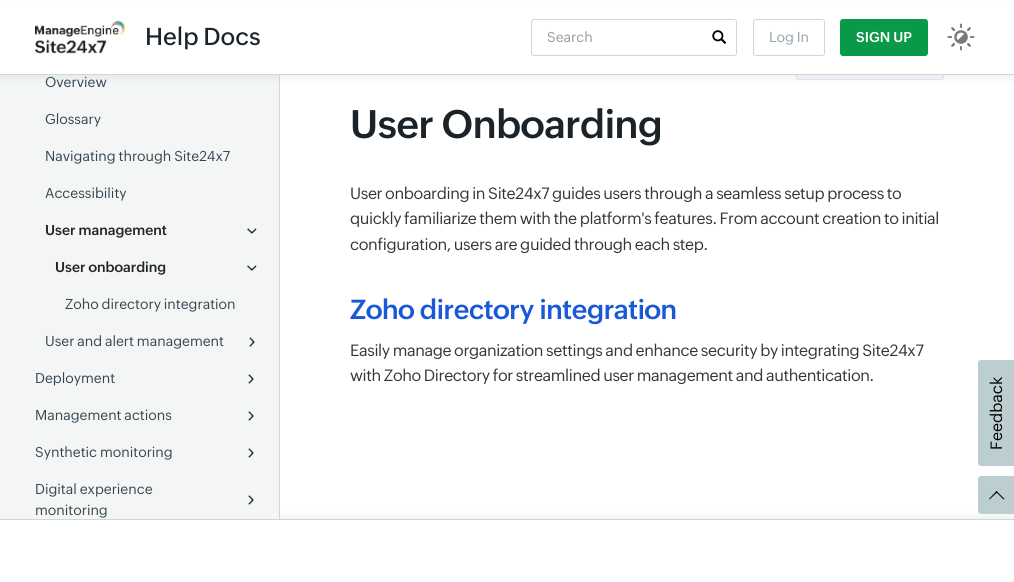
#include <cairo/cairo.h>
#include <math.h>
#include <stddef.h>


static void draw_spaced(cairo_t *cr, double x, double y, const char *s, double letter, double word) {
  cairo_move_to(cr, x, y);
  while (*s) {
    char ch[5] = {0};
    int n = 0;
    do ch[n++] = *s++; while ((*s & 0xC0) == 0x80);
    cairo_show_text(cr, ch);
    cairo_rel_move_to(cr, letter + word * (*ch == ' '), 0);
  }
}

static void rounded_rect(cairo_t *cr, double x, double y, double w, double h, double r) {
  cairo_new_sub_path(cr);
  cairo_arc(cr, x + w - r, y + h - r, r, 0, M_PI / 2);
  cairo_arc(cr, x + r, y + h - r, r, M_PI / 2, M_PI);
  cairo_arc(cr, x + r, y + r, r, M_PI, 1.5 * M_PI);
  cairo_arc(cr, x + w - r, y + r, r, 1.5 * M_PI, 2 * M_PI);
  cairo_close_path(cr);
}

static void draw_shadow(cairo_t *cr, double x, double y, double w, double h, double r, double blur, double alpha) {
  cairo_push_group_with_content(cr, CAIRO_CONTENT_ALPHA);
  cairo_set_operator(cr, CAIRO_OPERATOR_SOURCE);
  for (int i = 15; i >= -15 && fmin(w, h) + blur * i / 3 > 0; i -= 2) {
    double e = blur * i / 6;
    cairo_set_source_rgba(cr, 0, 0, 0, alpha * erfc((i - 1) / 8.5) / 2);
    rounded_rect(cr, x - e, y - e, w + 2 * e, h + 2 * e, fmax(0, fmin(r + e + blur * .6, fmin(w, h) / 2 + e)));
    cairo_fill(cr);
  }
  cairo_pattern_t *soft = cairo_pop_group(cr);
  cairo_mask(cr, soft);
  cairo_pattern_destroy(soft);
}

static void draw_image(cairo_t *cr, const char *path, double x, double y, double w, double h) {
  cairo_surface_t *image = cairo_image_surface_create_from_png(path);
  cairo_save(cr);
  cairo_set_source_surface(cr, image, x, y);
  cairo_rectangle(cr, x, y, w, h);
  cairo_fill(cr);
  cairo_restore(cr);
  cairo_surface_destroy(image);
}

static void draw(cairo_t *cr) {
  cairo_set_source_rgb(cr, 1, 1, 1);
  cairo_paint(cr);
  cairo_save(cr);
  cairo_rectangle(cr, 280, 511, 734, 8);
  cairo_clip(cr);
  cairo_set_source_rgb(cr, 164 / 255.0, 182 / 255.0, 196 / 255.0);
  draw_shadow(cr, 0, 514, 1014, 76, 0, 2.5, 0.15);
  cairo_restore(cr);
  cairo_set_source_rgb(cr, 244 / 255.0, 246 / 255.0, 246 / 255.0);
  cairo_rectangle(cr, 0, 75, 279, 444);
  cairo_fill(cr);
  cairo_set_source_rgb(cr, 207 / 255.0, 213 / 255.0, 217 / 255.0);
  cairo_rectangle(cr, 279, 75, 1, 444);
  cairo_fill(cr);
  cairo_set_source_rgb(cr, 248 / 255.0, 250 / 255.0, 252 / 255.0);
  rounded_rect(cr, 796.5, 47.5, 147, 32, 2.5);
  cairo_fill_preserve(cr);
  cairo_set_source_rgb(cr, 226 / 255.0, 232 / 255.0, 240 / 255.0);
  cairo_set_line_width(cr, 1);
  cairo_stroke(cr);
  cairo_set_source_rgb(cr, 164 / 255.0, 182 / 255.0, 196 / 255.0);
  draw_shadow(cr, 0, 5, 1014, 75, 0, 2.5, 0.15);
  cairo_set_source_rgb(cr, 1, 1, 1);
  cairo_rectangle(cr, 0, 3, 1014, 71);
  cairo_fill(cr);
  cairo_set_source_rgb(cr, 207 / 255.0, 213 / 255.0, 217 / 255.0);
  cairo_rectangle(cr, 0, 74, 1014, 1);
  cairo_fill(cr);
  draw_image(cr, "images/1.png", 35, 21, 90, 33);
  rounded_rect(cr, 531.5, 19.5, 205, 36, 2.5);
  cairo_stroke(cr);
  draw_image(cr, "images/2.png", 712, 30, 14, 14);
  rounded_rect(cr, 753.5, 19.5, 71, 36, 2.5);
  cairo_stroke(cr);
  cairo_set_source_rgb(cr, 8 / 255.0, 153 / 255.0, 73 / 255.0);
  rounded_rect(cr, 840.5, 19.5, 87, 36, 2.5);
  cairo_fill_preserve(cr);
  cairo_stroke(cr);
  draw_image(cr, "images/3.png", 947, 23, 28, 28);
  draw_image(cr, "images/4.png", 247, 228, 10, 6);
  draw_image(cr, "images/5.png", 246, 265, 11, 6);
  draw_image(cr, "images/6.png", 249, 337, 6, 10);
  draw_image(cr, "images/7.png", 248, 374, 6, 10);
  draw_image(cr, "images/7.png", 248, 411, 6, 10);
  draw_image(cr, "images/7.png", 248, 448, 6, 10);
  draw_image(cr, "images/7.png", 248, 495, 6, 10);
  cairo_set_source_rgb(cr, 189 / 255.0, 206 / 255.0, 208 / 255.0);
  cairo_new_path(cr);
  cairo_move_to(cr, 978, 463);
  cairo_line_to(cr, 978, 363);
  cairo_curve_to(cr, 978, 362, 979, 360, 981, 360);
  cairo_line_to(cr, 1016, 360);
  cairo_line_to(cr, 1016, 466);
  cairo_line_to(cr, 981, 466);
  cairo_curve_to(cr, 979, 466, 978, 464, 978, 463);
  cairo_close_path(cr);
  cairo_fill(cr);
  cairo_new_path(cr);
  cairo_move_to(cr, 981, 476);
  cairo_line_to(cr, 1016, 476);
  cairo_line_to(cr, 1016, 514);
  cairo_line_to(cr, 981, 514);
  cairo_curve_to(cr, 979.5, 514, 978, 512.5, 978, 511);
  cairo_line_to(cr, 978, 479);
  cairo_curve_to(cr, 978, 477.5, 979.5, 476, 981, 476);
  cairo_close_path(cr);
  cairo_fill(cr);
  cairo_set_source_rgb(cr, 0, 0, 0);
  cairo_new_path(cr);
  cairo_move_to(cr, 989, 499);
  cairo_line_to(cr, 996.5, 491);
  cairo_line_to(cr, 997.5, 492);
  cairo_line_to(cr, 989.5, 499.5);
  cairo_close_path(cr);
  cairo_fill(cr);
  cairo_new_path(cr);
  cairo_move_to(cr, 996, 492);
  cairo_line_to(cr, 996.5, 491);
  cairo_line_to(cr, 1004.5, 499);
  cairo_line_to(cr, 1003.5, 499.5);
  cairo_close_path(cr);
  cairo_fill(cr);
  cairo_set_source_rgb(cr, 207 / 255.0, 213 / 255.0, 217 / 255.0);
  cairo_rectangle(cr, 0, 519, 1014, 1);
  cairo_fill(cr);
  cairo_select_font_face(cr, "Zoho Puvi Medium", CAIRO_FONT_SLANT_NORMAL, CAIRO_FONT_WEIGHT_NORMAL);
  cairo_set_font_size(cr, 24);
  cairo_set_source_rgb(cr, 27 / 255.0, 35 / 255.0, 41 / 255.0);
  cairo_move_to(cr, 145, 45);
  cairo_show_text(cr, "Help Docs");
  cairo_select_font_face(cr, "Zoho Puvi", CAIRO_FONT_SLANT_NORMAL, CAIRO_FONT_WEIGHT_NORMAL);
  cairo_set_font_size(cr, 14);
  cairo_set_source_rgb(cr, 152 / 255.0, 155 / 255.0, 158 / 255.0);
  cairo_move_to(cr, 547, 42);
  cairo_show_text(cr, "Search");
  cairo_set_source_rgb(cr, 147 / 255.0, 162 / 255.0, 171 / 255.0);
  cairo_move_to(cr, 769, 42);
  cairo_show_text(cr, "Log In");
  cairo_select_font_face(cr, "Zoho Puvi SemiBold", CAIRO_FONT_SLANT_NORMAL, CAIRO_FONT_WEIGHT_NORMAL);
  cairo_set_source_rgb(cr, 1, 1, 1);
  cairo_move_to(cr, 856, 42);
  cairo_show_text(cr, "SIGN UP");
  cairo_select_font_face(cr, "Zoho Puvi", CAIRO_FONT_SLANT_NORMAL, CAIRO_FONT_WEIGHT_NORMAL);
  cairo_set_source_rgb(cr, 54 / 255.0, 70 / 255.0, 81 / 255.0);
  cairo_move_to(cr, 45, 87);
  cairo_show_text(cr, "Overview");
  cairo_move_to(cr, 45, 124);
  cairo_show_text(cr, "Glossary");
  cairo_move_to(cr, 45, 161);
  cairo_show_text(cr, "Navigating through Site24x7");
  cairo_move_to(cr, 45, 198);
  cairo_show_text(cr, "Accessibility");
  cairo_select_font_face(cr, "Zoho Puvi SemiBold", CAIRO_FONT_SLANT_NORMAL, CAIRO_FONT_WEIGHT_NORMAL);
  cairo_set_source_rgb(cr, 35 / 255.0, 37 / 255.0, 38 / 255.0);
  cairo_move_to(cr, 45, 235);
  cairo_show_text(cr, "User management");
  cairo_move_to(cr, 55, 272);
  cairo_show_text(cr, "User onboarding");
  cairo_select_font_face(cr, "Zoho Puvi", CAIRO_FONT_SLANT_NORMAL, CAIRO_FONT_WEIGHT_NORMAL);
  cairo_set_source_rgb(cr, 54 / 255.0, 70 / 255.0, 81 / 255.0);
  cairo_move_to(cr, 65, 309);
  cairo_show_text(cr, "Zoho directory integration");
  cairo_move_to(cr, 45, 346);
  cairo_show_text(cr, "User and alert management");
  cairo_move_to(cr, 35, 383);
  cairo_show_text(cr, "Deployment");
  cairo_move_to(cr, 35, 420);
  cairo_show_text(cr, "Management actions");
  cairo_move_to(cr, 35, 457);
  cairo_show_text(cr, "Synthetic monitoring");
  cairo_move_to(cr, 35, 494);
  cairo_show_text(cr, "Digital experience");
  cairo_move_to(cr, 35, 515);
  cairo_show_text(cr, "monitoring");
  cairo_select_font_face(cr, "Zoho Puvi SemiBold", CAIRO_FONT_SLANT_NORMAL, CAIRO_FONT_WEIGHT_NORMAL);
  cairo_set_font_size(cr, 39);
  cairo_set_source_rgb(cr, 27 / 255.0, 35 / 255.0, 41 / 255.0);
  draw_spaced(cr, 350, 138, "User Onboarding", -0.35, 0);
  cairo_select_font_face(cr, "Zoho Puvi", CAIRO_FONT_SLANT_NORMAL, CAIRO_FONT_WEIGHT_NORMAL);
  cairo_set_font_size(cr, 16);
  cairo_set_source_rgb(cr, 48 / 255.0, 55 / 255.0, 60 / 255.0);
  draw_spaced(cr, 350, 199, "User onboarding in Site24x7 guides users through a seamless setup process to", -0.35, 0);
  draw_spaced(cr, 350, 224, "quickly familiarize them with the platform's features. From account creation to initial", -0.35, 0);
  draw_spaced(cr, 350, 250, "configuration, users are guided through each step.", -0.35, 0);
  cairo_select_font_face(cr, "Zoho Puvi SemiBold", CAIRO_FONT_SLANT_NORMAL, CAIRO_FONT_WEIGHT_NORMAL);
  cairo_set_font_size(cr, 27);
  cairo_set_source_rgb(cr, 25 / 255.0, 88 / 255.0, 215 / 255.0);
  draw_spaced(cr, 350, 319, "Zoho directory integration", -0.35, 0);
  cairo_select_font_face(cr, "Zoho Puvi", CAIRO_FONT_SLANT_NORMAL, CAIRO_FONT_WEIGHT_NORMAL);
  cairo_set_font_size(cr, 16);
  cairo_set_source_rgb(cr, 48 / 255.0, 55 / 255.0, 60 / 255.0);
  draw_spaced(cr, 350, 356, "Easily manage organization settings and enhance security by integrating Site24x7", -0.35, 0);
  draw_spaced(cr, 350, 381, "with Zoho Directory for streamlined user management and authentication.", -0.35, 0);
  cairo_set_source_rgb(cr, 0, 0, 0);
  cairo_save(cr);
  cairo_translate(cr, 1002, 450);
  cairo_rotate(cr, -90 * M_PI / 180);
  cairo_move_to(cr, 0, 0);
  cairo_show_text(cr, "Feedback");
  cairo_restore(cr);
}

int main(void) {
  cairo_surface_t *surface = cairo_image_surface_create(CAIRO_FORMAT_RGB24, 1014, 582);
  cairo_t *cr = cairo_create(surface);
  cairo_font_options_t *options = cairo_font_options_create();
  cairo_font_options_set_hint_metrics(options, CAIRO_HINT_METRICS_OFF);
  cairo_font_options_set_hint_style(options, CAIRO_HINT_STYLE_NONE);
  cairo_set_font_options(cr, options);
  cairo_set_miter_limit(cr, 4);
  draw(cr);
  cairo_surface_write_to_png(surface, "out.png");
  cairo_font_options_destroy(options);
  cairo_destroy(cr);
  cairo_surface_destroy(surface);
  return 0;
}
